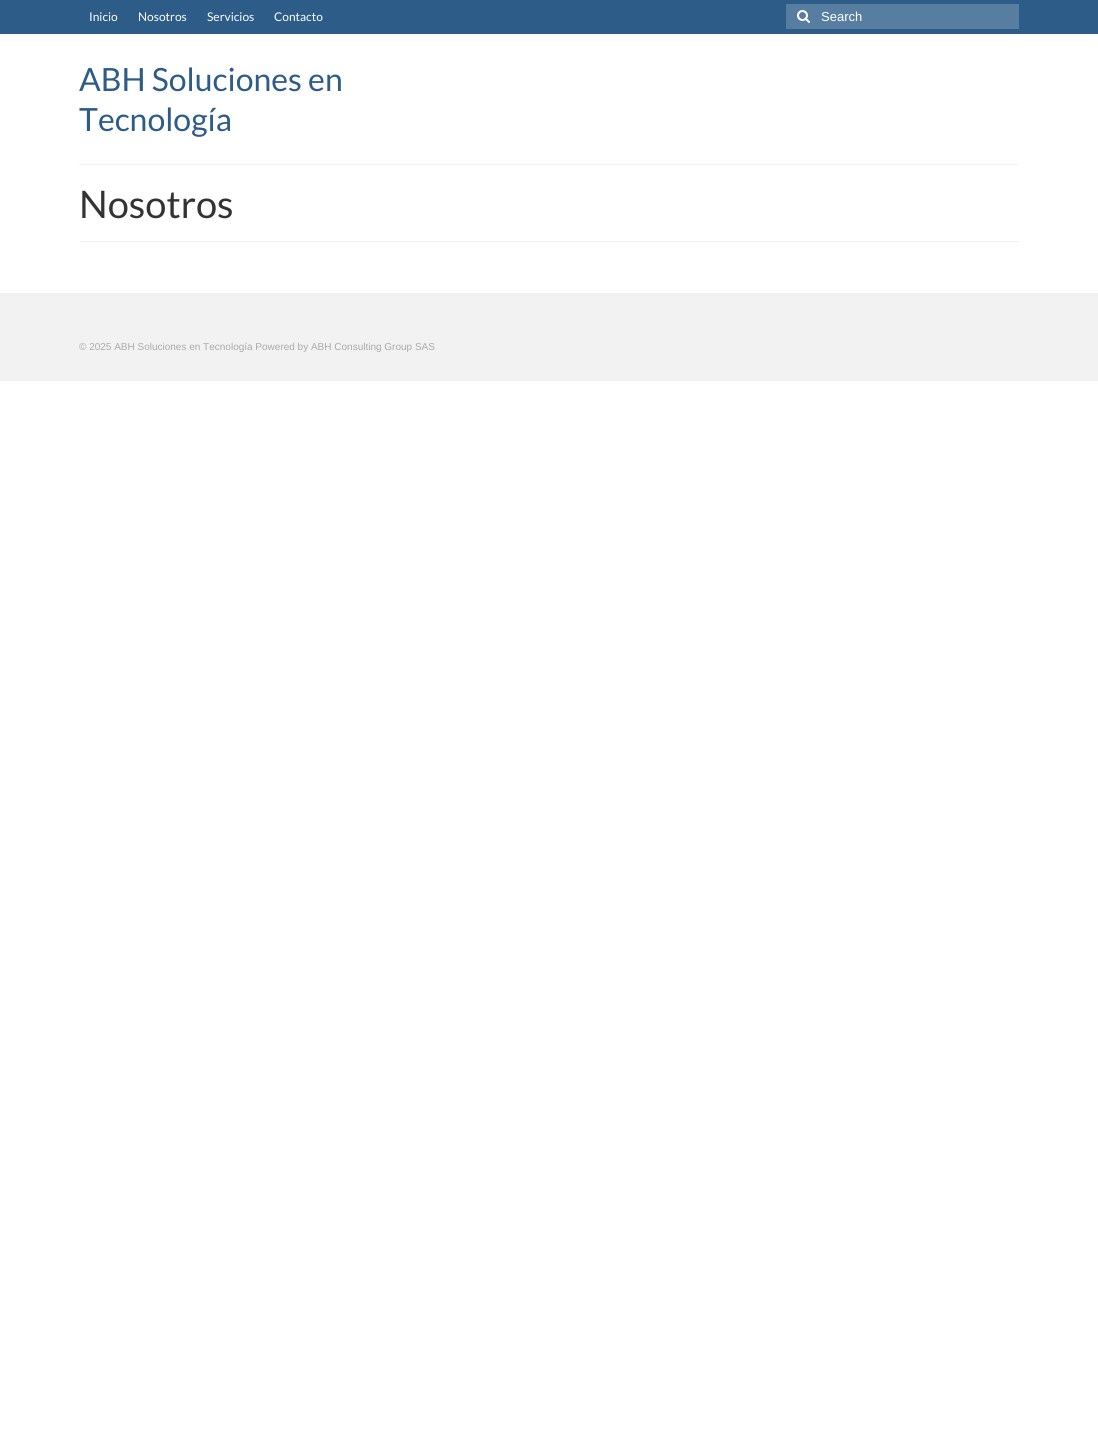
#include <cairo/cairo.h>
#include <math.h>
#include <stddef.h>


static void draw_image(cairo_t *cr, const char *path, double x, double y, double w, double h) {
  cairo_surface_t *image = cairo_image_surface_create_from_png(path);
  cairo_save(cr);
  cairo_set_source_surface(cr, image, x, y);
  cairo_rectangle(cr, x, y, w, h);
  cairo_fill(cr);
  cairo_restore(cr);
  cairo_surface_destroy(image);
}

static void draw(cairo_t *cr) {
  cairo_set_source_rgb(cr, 1, 1, 1);
  cairo_paint(cr);
  cairo_set_source_rgb(cr, 45 / 255.0, 92 / 255.0, 136 / 255.0);
  cairo_rectangle(cr, 0, 0, 1098, 34);
  cairo_fill(cr);
  cairo_set_source_rgb(cr, 87 / 255.0, 125 / 255.0, 160 / 255.0);
  cairo_rectangle(cr, 786, 4, 233, 25);
  cairo_fill(cr);
  draw_image(cr, "images/1.png", 797, 10, 13, 13);
  cairo_set_source_rgb(cr, 242 / 255.0, 242 / 255.0, 242 / 255.0);
  cairo_rectangle(cr, 79, 164, 940, 1);
  cairo_fill(cr);
  cairo_rectangle(cr, 79, 241, 940, 1);
  cairo_fill(cr);
  cairo_rectangle(cr, 0, 293, 1098, 88);
  cairo_fill(cr);
  cairo_select_font_face(cr, "Lato", CAIRO_FONT_SLANT_NORMAL, CAIRO_FONT_WEIGHT_NORMAL);
  cairo_set_font_size(cr, 12);
  cairo_set_source_rgb(cr, 1, 1, 1);
  cairo_move_to(cr, 89, 21);
  cairo_show_text(cr, "Inicio");
  cairo_move_to(cr, 138, 21);
  cairo_show_text(cr, "Nosotros");
  cairo_move_to(cr, 207, 21);
  cairo_show_text(cr, "Servicios");
  cairo_move_to(cr, 274, 21);
  cairo_show_text(cr, "Contacto");
  cairo_select_font_face(cr, "Liberation Sans", CAIRO_FONT_SLANT_NORMAL, CAIRO_FONT_WEIGHT_NORMAL);
  cairo_set_font_size(cr, 13);
  cairo_move_to(cr, 821, 21);
  cairo_show_text(cr, "Search");
  cairo_select_font_face(cr, "Lato", CAIRO_FONT_SLANT_NORMAL, CAIRO_FONT_WEIGHT_NORMAL);
  cairo_set_font_size(cr, 32);
  cairo_set_source_rgb(cr, 45 / 255.0, 92 / 255.0, 136 / 255.0);
  cairo_move_to(cr, 79, 91);
  cairo_show_text(cr, "ABH Soluciones en");
  cairo_move_to(cr, 79, 131);
  cairo_show_text(cr, "Tecnología");
  cairo_set_font_size(cr, 38);
  cairo_set_source_rgb(cr, 51 / 255.0, 51 / 255.0, 51 / 255.0);
  cairo_move_to(cr, 79, 218);
  cairo_show_text(cr, "Nosotros");
  cairo_select_font_face(cr, "Liberation Sans", CAIRO_FONT_SLANT_NORMAL, CAIRO_FONT_WEIGHT_NORMAL);
  cairo_set_font_size(cr, 10);
  cairo_set_source_rgb(cr, 170 / 255.0, 170 / 255.0, 170 / 255.0);
  cairo_move_to(cr, 79, 350);
  cairo_show_text(cr, "© 2025 ABH Soluciones en Tecnología Powered by ABH Consulting Group SAS");
}

int main(void) {
  cairo_surface_t *surface = cairo_image_surface_create(CAIRO_FORMAT_RGB24, 1098, 1441);
  cairo_t *cr = cairo_create(surface);
  cairo_font_options_t *options = cairo_font_options_create();
  cairo_font_options_set_hint_metrics(options, CAIRO_HINT_METRICS_OFF);
  cairo_font_options_set_hint_style(options, CAIRO_HINT_STYLE_NONE);
  cairo_set_font_options(cr, options);
  cairo_set_miter_limit(cr, 4);
  draw(cr);
  cairo_surface_write_to_png(surface, "out.png");
  cairo_font_options_destroy(options);
  cairo_destroy(cr);
  cairo_surface_destroy(surface);
  return 0;
}
